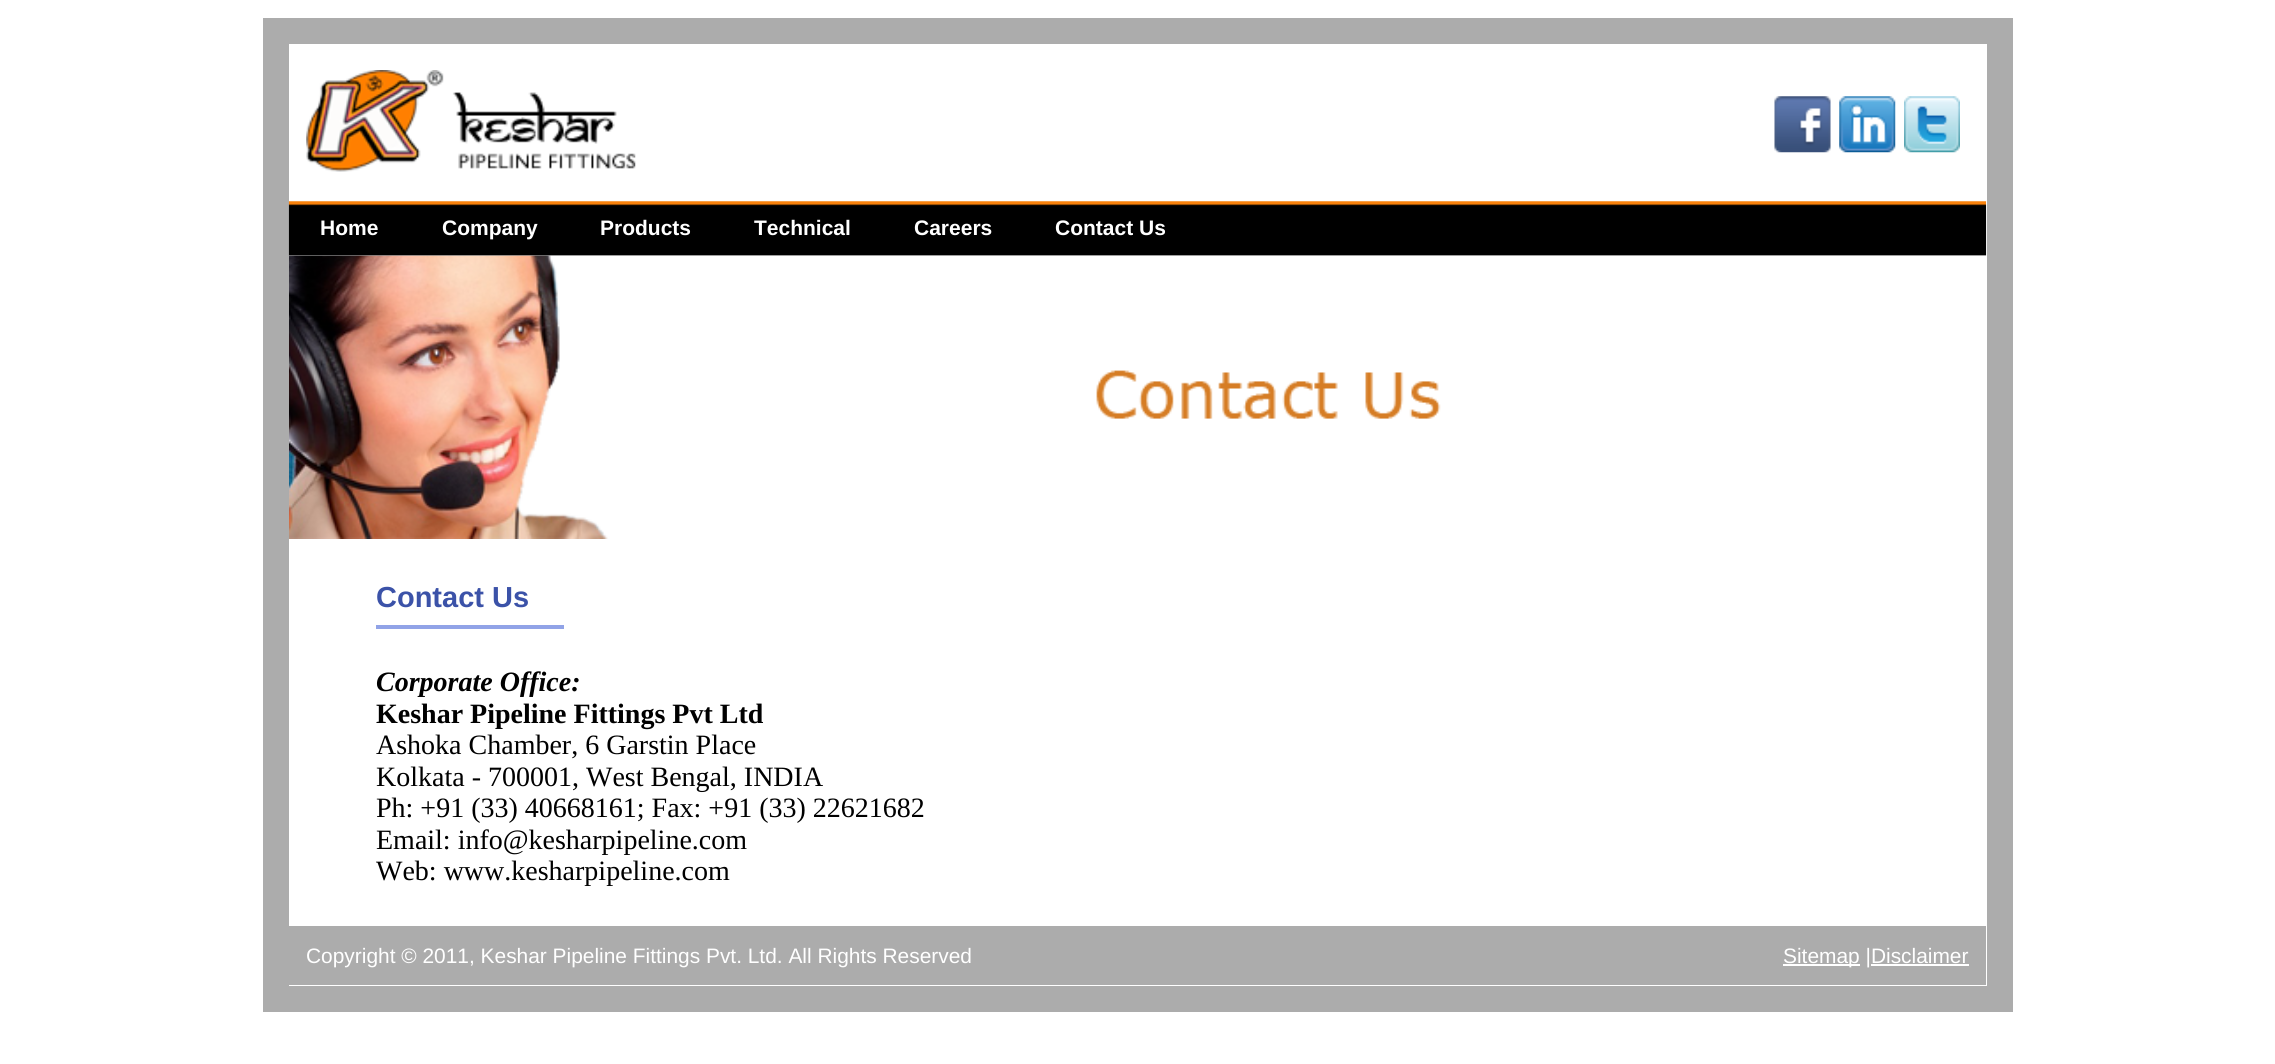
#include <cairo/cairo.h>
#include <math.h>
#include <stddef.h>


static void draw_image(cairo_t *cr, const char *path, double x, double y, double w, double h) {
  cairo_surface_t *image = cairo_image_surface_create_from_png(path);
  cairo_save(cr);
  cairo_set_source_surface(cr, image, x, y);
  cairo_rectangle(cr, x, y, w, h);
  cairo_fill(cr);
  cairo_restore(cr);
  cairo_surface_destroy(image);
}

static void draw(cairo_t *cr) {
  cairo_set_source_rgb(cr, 1, 1, 1);
  cairo_paint(cr);
  cairo_rectangle(cr, 276, 31, 1724, 968);
  cairo_set_source_rgb(cr, 172 / 255.0, 172 / 255.0, 172 / 255.0);
  cairo_set_line_width(cr, 26);
  cairo_stroke(cr);
  draw_image(cr, "images/1.png", 306, 70, 330, 102);
  draw_image(cr, "images/2.png", 1774, 96, 57, 57);
  draw_image(cr, "images/3.png", 1839, 96, 57, 57);
  draw_image(cr, "images/4.png", 1904, 96, 56, 57);
  draw_image(cr, "images/5.png", 288, 201, 1699, 55);
  draw_image(cr, "images/6.png", 289, 255, 1697, 284);
  cairo_set_source_rgb(cr, 145 / 255.0, 163 / 255.0, 231 / 255.0);
  cairo_rectangle(cr, 376, 625, 188, 4);
  cairo_fill(cr);
  cairo_set_source_rgb(cr, 172 / 255.0, 172 / 255.0, 172 / 255.0);
  cairo_rectangle(cr, 289, 926, 1697, 59);
  cairo_fill(cr);
  cairo_set_source_rgb(cr, 1, 1, 1);
  cairo_rectangle(cr, 1783, 964, 77, 2);
  cairo_fill(cr);
  cairo_rectangle(cr, 1871, 964, 98, 2);
  cairo_fill(cr);
  cairo_select_font_face(cr, "Liberation Sans", CAIRO_FONT_SLANT_NORMAL, CAIRO_FONT_WEIGHT_BOLD);
  cairo_set_font_size(cr, 21);
  cairo_move_to(cr, 320, 235);
  cairo_show_text(cr, "Home");
  cairo_move_to(cr, 442, 235);
  cairo_show_text(cr, "Company");
  cairo_move_to(cr, 600, 235);
  cairo_show_text(cr, "Products");
  cairo_move_to(cr, 754, 235);
  cairo_show_text(cr, "Technical");
  cairo_move_to(cr, 914, 235);
  cairo_show_text(cr, "Careers");
  cairo_move_to(cr, 1055, 235);
  cairo_show_text(cr, "Contact Us");
  cairo_set_font_size(cr, 29);
  cairo_set_source_rgb(cr, 59 / 255.0, 82 / 255.0, 168 / 255.0);
  cairo_move_to(cr, 376, 607);
  cairo_show_text(cr, "Contact Us");
  cairo_select_font_face(cr, "Liberation Serif", CAIRO_FONT_SLANT_ITALIC, CAIRO_FONT_WEIGHT_BOLD);
  cairo_set_font_size(cr, 28);
  cairo_set_source_rgb(cr, 0, 0, 0);
  cairo_move_to(cr, 376, 691);
  cairo_show_text(cr, "Corporate Office:");
  cairo_select_font_face(cr, "Liberation Serif", CAIRO_FONT_SLANT_NORMAL, CAIRO_FONT_WEIGHT_BOLD);
  cairo_move_to(cr, 376, 723);
  cairo_show_text(cr, "Keshar Pipeline Fittings Pvt Ltd");
  cairo_select_font_face(cr, "Liberation Serif", CAIRO_FONT_SLANT_NORMAL, CAIRO_FONT_WEIGHT_NORMAL);
  cairo_move_to(cr, 376, 754);
  cairo_show_text(cr, "Ashoka Chamber, 6 Garstin Place");
  cairo_move_to(cr, 376, 786);
  cairo_show_text(cr, "Kolkata - 700001, West Bengal, INDIA");
  cairo_move_to(cr, 376, 817);
  cairo_show_text(cr, "Ph: +91 (33) 40668161; Fax: +91 (33) 22621682");
  cairo_move_to(cr, 376, 849);
  cairo_show_text(cr, "Email: info@kesharpipeline.com");
  cairo_move_to(cr, 376, 880);
  cairo_show_text(cr, "Web: www.kesharpipeline.com");
  cairo_select_font_face(cr, "Liberation Sans", CAIRO_FONT_SLANT_NORMAL, CAIRO_FONT_WEIGHT_NORMAL);
  cairo_set_font_size(cr, 20.9);
  cairo_set_source_rgb(cr, 1, 1, 1);
  cairo_move_to(cr, 306, 963);
  cairo_show_text(cr, "Copyright © 2011, Keshar Pipeline Fittings Pvt. Ltd. All Rights Reserved");
  cairo_move_to(cr, 1783, 963);
  cairo_show_text(cr, "Sitemap |Disclaimer");
}

int main(void) {
  cairo_surface_t *surface = cairo_image_surface_create(CAIRO_FORMAT_RGB24, 2275, 1064);
  cairo_t *cr = cairo_create(surface);
  cairo_font_options_t *options = cairo_font_options_create();
  cairo_font_options_set_hint_metrics(options, CAIRO_HINT_METRICS_OFF);
  cairo_font_options_set_hint_style(options, CAIRO_HINT_STYLE_NONE);
  cairo_set_font_options(cr, options);
  cairo_set_miter_limit(cr, 4);
  draw(cr);
  cairo_surface_write_to_png(surface, "out.png");
  cairo_font_options_destroy(options);
  cairo_destroy(cr);
  cairo_surface_destroy(surface);
  return 0;
}
